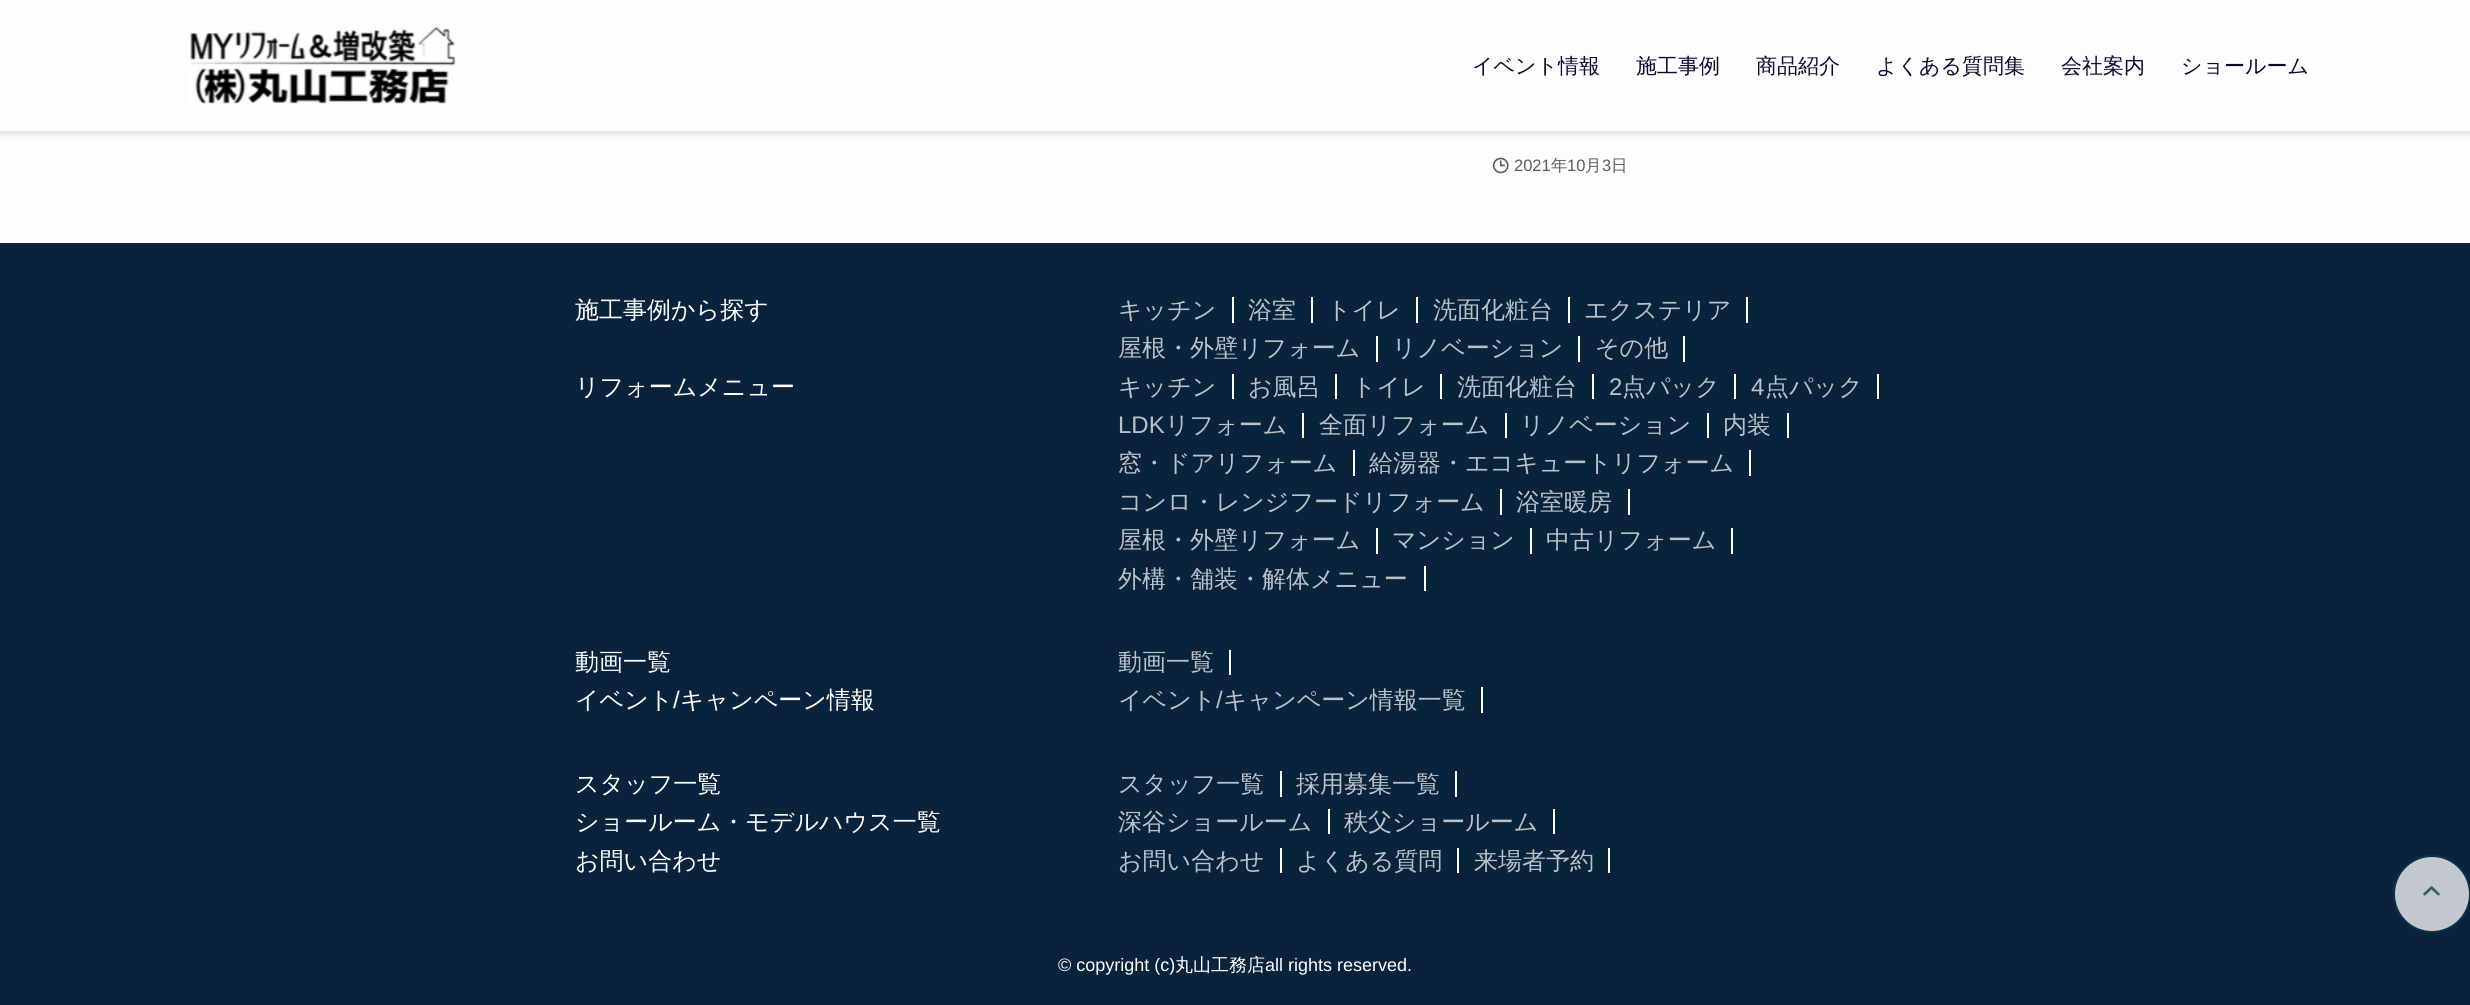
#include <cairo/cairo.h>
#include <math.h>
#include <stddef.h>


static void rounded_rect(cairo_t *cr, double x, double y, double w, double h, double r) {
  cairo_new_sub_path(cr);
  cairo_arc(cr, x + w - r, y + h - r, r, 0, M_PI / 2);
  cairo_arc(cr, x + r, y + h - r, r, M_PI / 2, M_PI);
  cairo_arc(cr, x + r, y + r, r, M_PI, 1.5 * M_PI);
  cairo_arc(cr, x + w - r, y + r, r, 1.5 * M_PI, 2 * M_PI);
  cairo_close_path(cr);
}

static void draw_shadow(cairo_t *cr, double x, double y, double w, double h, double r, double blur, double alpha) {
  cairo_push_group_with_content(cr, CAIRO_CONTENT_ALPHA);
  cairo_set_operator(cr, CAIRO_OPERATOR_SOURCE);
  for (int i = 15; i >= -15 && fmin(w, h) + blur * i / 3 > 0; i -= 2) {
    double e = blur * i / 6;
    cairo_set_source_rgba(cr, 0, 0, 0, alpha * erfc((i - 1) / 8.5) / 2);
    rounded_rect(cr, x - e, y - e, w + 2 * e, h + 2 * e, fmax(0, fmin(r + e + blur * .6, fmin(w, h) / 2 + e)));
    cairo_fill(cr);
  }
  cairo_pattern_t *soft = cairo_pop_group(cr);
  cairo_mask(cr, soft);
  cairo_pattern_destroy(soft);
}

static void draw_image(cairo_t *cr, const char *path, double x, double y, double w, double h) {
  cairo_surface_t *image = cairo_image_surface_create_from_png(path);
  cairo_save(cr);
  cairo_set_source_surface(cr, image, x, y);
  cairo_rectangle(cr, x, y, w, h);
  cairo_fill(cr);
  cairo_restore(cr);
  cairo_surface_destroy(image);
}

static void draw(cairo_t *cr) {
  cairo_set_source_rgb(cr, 253 / 255.0, 253 / 255.0, 253 / 255.0);
  cairo_paint(cr);
  cairo_set_source_rgb(cr, 0, 0, 0);
  draw_shadow(cr, 0, 3, 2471, 131, 0, 3, 0.12);
  cairo_set_source_rgb(cr, 253 / 255.0, 253 / 255.0, 253 / 255.0);
  cairo_rectangle(cr, 0, 0, 2470, 131);
  cairo_fill(cr);
  draw_image(cr, "images/1.png", 189, 26, 267, 78);
  draw_image(cr, "images/2.png", 1492, 157, 17, 17);
  cairo_set_source_rgb(cr, 10 / 255.0, 35 / 255.0, 60 / 255.0);
  cairo_rectangle(cr, 0, 243, 2470, 762);
  cairo_fill(cr);
  cairo_set_source_rgb(cr, 1, 1, 1);
  cairo_rectangle(cr, 1232, 297, 2, 26);
  cairo_fill(cr);
  cairo_rectangle(cr, 1311, 297, 2, 26);
  cairo_fill(cr);
  cairo_rectangle(cr, 1416, 297, 2, 26);
  cairo_fill(cr);
  cairo_rectangle(cr, 1568, 297, 2, 26);
  cairo_fill(cr);
  cairo_rectangle(cr, 1746, 297, 2, 26);
  cairo_fill(cr);
  cairo_rectangle(cr, 1376, 336, 2, 26);
  cairo_fill(cr);
  cairo_rectangle(cr, 1578, 336, 2, 26);
  cairo_fill(cr);
  cairo_rectangle(cr, 1683, 336, 2, 26);
  cairo_fill(cr);
  cairo_rectangle(cr, 1232, 374, 2, 25);
  cairo_fill(cr);
  cairo_rectangle(cr, 1335, 374, 2, 25);
  cairo_fill(cr);
  cairo_rectangle(cr, 1440, 374, 2, 25);
  cairo_fill(cr);
  cairo_rectangle(cr, 1592, 374, 2, 25);
  cairo_fill(cr);
  cairo_rectangle(cr, 1734, 374, 2, 25);
  cairo_fill(cr);
  cairo_rectangle(cr, 1877, 374, 2, 25);
  cairo_fill(cr);
  cairo_rectangle(cr, 1302, 413, 2, 25);
  cairo_fill(cr);
  cairo_rectangle(cr, 1505, 413, 2, 25);
  cairo_fill(cr);
  cairo_rectangle(cr, 1707, 413, 2, 25);
  cairo_fill(cr);
  cairo_rectangle(cr, 1787, 413, 2, 25);
  cairo_fill(cr);
  cairo_rectangle(cr, 1353, 450, 2, 26);
  cairo_fill(cr);
  cairo_rectangle(cr, 1749, 450, 2, 26);
  cairo_fill(cr);
  cairo_rectangle(cr, 1500, 489, 2, 26);
  cairo_fill(cr);
  cairo_rectangle(cr, 1628, 489, 2, 26);
  cairo_fill(cr);
  cairo_rectangle(cr, 1376, 528, 2, 26);
  cairo_fill(cr);
  cairo_rectangle(cr, 1530, 528, 2, 26);
  cairo_fill(cr);
  cairo_rectangle(cr, 1731, 528, 2, 26);
  cairo_fill(cr);
  cairo_rectangle(cr, 1424, 566, 2, 25);
  cairo_fill(cr);
  cairo_rectangle(cr, 1229, 650, 2, 25);
  cairo_fill(cr);
  cairo_rectangle(cr, 1481, 687, 2, 26);
  cairo_fill(cr);
  cairo_rectangle(cr, 1280, 771, 2, 26);
  cairo_fill(cr);
  cairo_rectangle(cr, 1455, 771, 2, 26);
  cairo_fill(cr);
  cairo_rectangle(cr, 1328, 809, 2, 25);
  cairo_fill(cr);
  cairo_rectangle(cr, 1553, 809, 2, 25);
  cairo_fill(cr);
  cairo_rectangle(cr, 1280, 848, 2, 25);
  cairo_fill(cr);
  cairo_rectangle(cr, 1457, 848, 2, 25);
  cairo_fill(cr);
  cairo_rectangle(cr, 1608, 848, 2, 25);
  cairo_fill(cr);
  cairo_set_source_rgb(cr, 194 / 255.0, 200 / 255.0, 206 / 255.0);
  cairo_arc(cr, 2432, 894, 38, 0, 2 * M_PI);
  cairo_fill_preserve(cr);
  cairo_set_source_rgb(cr, 6 / 255.0, 51 / 255.0, 72 / 255.0);
  cairo_stroke(cr);
  draw_image(cr, "images/3.png", 2423, 886, 17, 10);
  cairo_select_font_face(cr, "WenQuanYi Zen Hei Medium", CAIRO_FONT_SLANT_NORMAL, CAIRO_FONT_WEIGHT_NORMAL);
  cairo_set_font_size(cr, 21);
  cairo_set_source_rgb(cr, 7 / 255.0, 12 / 255.0, 48 / 255.0);
  cairo_move_to(cr, 1472, 73);
  cairo_show_text(cr, "イベント情報");
  cairo_move_to(cr, 1636, 73);
  cairo_show_text(cr, "施工事例");
  cairo_move_to(cr, 1756, 73);
  cairo_show_text(cr, "商品紹介");
  cairo_move_to(cr, 1876, 73);
  cairo_show_text(cr, "よくある質問集");
  cairo_move_to(cr, 2061, 73);
  cairo_show_text(cr, "会社案内");
  cairo_move_to(cr, 2181, 73);
  cairo_show_text(cr, "ショールーム");
  cairo_select_font_face(cr, "Liberation Sans", CAIRO_FONT_SLANT_NORMAL, CAIRO_FONT_WEIGHT_NORMAL);
  cairo_set_font_size(cr, 16.5);
  cairo_set_source_rgb(cr, 91 / 255.0, 91 / 255.0, 91 / 255.0);
  cairo_move_to(cr, 1514, 171);
  cairo_show_text(cr, "2021");
  cairo_select_font_face(cr, "WenQuanYi Zen Hei Medium", CAIRO_FONT_SLANT_NORMAL, CAIRO_FONT_WEIGHT_NORMAL);
  cairo_move_to(cr, 1551, 171);
  cairo_show_text(cr, "年");
  cairo_select_font_face(cr, "Liberation Sans", CAIRO_FONT_SLANT_NORMAL, CAIRO_FONT_WEIGHT_NORMAL);
  cairo_move_to(cr, 1567, 171);
  cairo_show_text(cr, "10");
  cairo_select_font_face(cr, "WenQuanYi Zen Hei Medium", CAIRO_FONT_SLANT_NORMAL, CAIRO_FONT_WEIGHT_NORMAL);
  cairo_move_to(cr, 1585, 171);
  cairo_show_text(cr, "月");
  cairo_select_font_face(cr, "Liberation Sans", CAIRO_FONT_SLANT_NORMAL, CAIRO_FONT_WEIGHT_NORMAL);
  cairo_move_to(cr, 1602, 171);
  cairo_show_text(cr, "3");
  cairo_select_font_face(cr, "WenQuanYi Zen Hei Medium", CAIRO_FONT_SLANT_NORMAL, CAIRO_FONT_WEIGHT_NORMAL);
  cairo_move_to(cr, 1611, 171);
  cairo_show_text(cr, "日");
  cairo_set_font_size(cr, 24);
  cairo_set_source_rgb(cr, 1, 1, 1);
  cairo_move_to(cr, 575, 318);
  cairo_show_text(cr, "施工事例から探す");
  cairo_set_source_rgb(cr, 186 / 255.0, 194 / 255.0, 200 / 255.0);
  cairo_move_to(cr, 1118, 318);
  cairo_show_text(cr, "キッチン");
  cairo_move_to(cr, 1248, 318);
  cairo_show_text(cr, "浴室");
  cairo_move_to(cr, 1327, 318);
  cairo_show_text(cr, "トイレ");
  cairo_move_to(cr, 1433, 318);
  cairo_show_text(cr, "洗面化粧台");
  cairo_move_to(cr, 1584, 318);
  cairo_show_text(cr, "エクステリア");
  cairo_move_to(cr, 1118, 356);
  cairo_show_text(cr, "屋根・外壁リフォーム");
  cairo_move_to(cr, 1392, 356);
  cairo_show_text(cr, "リノベーション");
  cairo_move_to(cr, 1595, 356);
  cairo_show_text(cr, "その他");
  cairo_set_source_rgb(cr, 1, 1, 1);
  cairo_move_to(cr, 575, 395);
  cairo_show_text(cr, "リフォームメニュー");
  cairo_set_source_rgb(cr, 186 / 255.0, 194 / 255.0, 200 / 255.0);
  cairo_move_to(cr, 1118, 395);
  cairo_show_text(cr, "キッチン");
  cairo_move_to(cr, 1248, 395);
  cairo_show_text(cr, "お風呂");
  cairo_move_to(cr, 1352, 395);
  cairo_show_text(cr, "トイレ");
  cairo_move_to(cr, 1457, 395);
  cairo_show_text(cr, "洗面化粧台");
  cairo_select_font_face(cr, "Liberation Sans", CAIRO_FONT_SLANT_NORMAL, CAIRO_FONT_WEIGHT_NORMAL);
  cairo_move_to(cr, 1609, 395);
  cairo_show_text(cr, "2");
  cairo_select_font_face(cr, "WenQuanYi Zen Hei Medium", CAIRO_FONT_SLANT_NORMAL, CAIRO_FONT_WEIGHT_NORMAL);
  cairo_move_to(cr, 1622, 395);
  cairo_show_text(cr, "点パック");
  cairo_select_font_face(cr, "Liberation Sans", CAIRO_FONT_SLANT_NORMAL, CAIRO_FONT_WEIGHT_NORMAL);
  cairo_move_to(cr, 1751, 395);
  cairo_show_text(cr, "4");
  cairo_select_font_face(cr, "WenQuanYi Zen Hei Medium", CAIRO_FONT_SLANT_NORMAL, CAIRO_FONT_WEIGHT_NORMAL);
  cairo_move_to(cr, 1765, 395);
  cairo_show_text(cr, "点パック");
  cairo_select_font_face(cr, "Liberation Sans", CAIRO_FONT_SLANT_NORMAL, CAIRO_FONT_WEIGHT_NORMAL);
  cairo_move_to(cr, 1118, 433);
  cairo_show_text(cr, "LDK");
  cairo_select_font_face(cr, "WenQuanYi Zen Hei Medium", CAIRO_FONT_SLANT_NORMAL, CAIRO_FONT_WEIGHT_NORMAL);
  cairo_move_to(cr, 1165, 433);
  cairo_show_text(cr, "リフォーム");
  cairo_move_to(cr, 1319, 433);
  cairo_show_text(cr, "全面リフォーム");
  cairo_move_to(cr, 1520, 433);
  cairo_show_text(cr, "リノベーション");
  cairo_move_to(cr, 1723, 433);
  cairo_show_text(cr, "内装");
  cairo_move_to(cr, 1118, 471);
  cairo_show_text(cr, "窓・ドアリフォーム");
  cairo_move_to(cr, 1369, 471);
  cairo_show_text(cr, "給湯器・エコキュートリフォーム");
  cairo_move_to(cr, 1118, 510);
  cairo_show_text(cr, "コンロ・レンジフードリフォーム");
  cairo_move_to(cr, 1516, 510);
  cairo_show_text(cr, "浴室暖房");
  cairo_move_to(cr, 1118, 548);
  cairo_show_text(cr, "屋根・外壁リフォーム");
  cairo_move_to(cr, 1392, 548);
  cairo_show_text(cr, "マンション");
  cairo_move_to(cr, 1546, 548);
  cairo_show_text(cr, "中古リフォーム");
  cairo_move_to(cr, 1118, 587);
  cairo_show_text(cr, "外構・舗装・解体メニュー");
  cairo_set_source_rgb(cr, 1, 1, 1);
  cairo_move_to(cr, 575, 670);
  cairo_show_text(cr, "動画一覧");
  cairo_set_source_rgb(cr, 186 / 255.0, 194 / 255.0, 200 / 255.0);
  cairo_move_to(cr, 1118, 670);
  cairo_show_text(cr, "動画一覧");
  cairo_set_source_rgb(cr, 1, 1, 1);
  cairo_move_to(cr, 575, 708);
  cairo_show_text(cr, "イベント");
  cairo_select_font_face(cr, "Liberation Sans", CAIRO_FONT_SLANT_NORMAL, CAIRO_FONT_WEIGHT_NORMAL);
  cairo_move_to(cr, 673, 708);
  cairo_show_text(cr, "/");
  cairo_select_font_face(cr, "WenQuanYi Zen Hei Medium", CAIRO_FONT_SLANT_NORMAL, CAIRO_FONT_WEIGHT_NORMAL);
  cairo_move_to(cr, 680, 708);
  cairo_show_text(cr, "キャンペーン情報");
  cairo_set_source_rgb(cr, 186 / 255.0, 194 / 255.0, 200 / 255.0);
  cairo_move_to(cr, 1118, 708);
  cairo_show_text(cr, "イベント");
  cairo_select_font_face(cr, "Liberation Sans", CAIRO_FONT_SLANT_NORMAL, CAIRO_FONT_WEIGHT_NORMAL);
  cairo_move_to(cr, 1216, 708);
  cairo_show_text(cr, "/");
  cairo_select_font_face(cr, "WenQuanYi Zen Hei Medium", CAIRO_FONT_SLANT_NORMAL, CAIRO_FONT_WEIGHT_NORMAL);
  cairo_move_to(cr, 1223, 708);
  cairo_show_text(cr, "キャンペーン情報一覧");
  cairo_set_source_rgb(cr, 1, 1, 1);
  cairo_move_to(cr, 575, 792);
  cairo_show_text(cr, "スタッフ一覧");
  cairo_set_source_rgb(cr, 186 / 255.0, 194 / 255.0, 200 / 255.0);
  cairo_move_to(cr, 1118, 792);
  cairo_show_text(cr, "スタッフ一覧");
  cairo_move_to(cr, 1296, 792);
  cairo_show_text(cr, "採用募集一覧");
  cairo_set_source_rgb(cr, 1, 1, 1);
  cairo_move_to(cr, 575, 830);
  cairo_show_text(cr, "ショールーム・モデルハウス一覧");
  cairo_set_source_rgb(cr, 186 / 255.0, 194 / 255.0, 200 / 255.0);
  cairo_move_to(cr, 1118, 830);
  cairo_show_text(cr, "深谷ショールーム");
  cairo_move_to(cr, 1344, 830);
  cairo_show_text(cr, "秩父ショールーム");
  cairo_set_source_rgb(cr, 1, 1, 1);
  cairo_move_to(cr, 575, 869);
  cairo_show_text(cr, "お問い合わせ");
  cairo_set_source_rgb(cr, 186 / 255.0, 194 / 255.0, 200 / 255.0);
  cairo_move_to(cr, 1118, 869);
  cairo_show_text(cr, "お問い合わせ");
  cairo_move_to(cr, 1296, 869);
  cairo_show_text(cr, "よくある質問");
  cairo_move_to(cr, 1474, 869);
  cairo_show_text(cr, "来場者予約");
  cairo_select_font_face(cr, "Liberation Sans", CAIRO_FONT_SLANT_NORMAL, CAIRO_FONT_WEIGHT_NORMAL);
  cairo_set_font_size(cr, 18);
  cairo_set_source_rgb(cr, 1, 1, 1);
  cairo_move_to(cr, 1058, 971);
  cairo_show_text(cr, "© copyright (c)");
  cairo_select_font_face(cr, "WenQuanYi Zen Hei Medium", CAIRO_FONT_SLANT_NORMAL, CAIRO_FONT_WEIGHT_NORMAL);
  cairo_move_to(cr, 1175, 971);
  cairo_show_text(cr, "丸山工務店");
  cairo_select_font_face(cr, "Liberation Sans", CAIRO_FONT_SLANT_NORMAL, CAIRO_FONT_WEIGHT_NORMAL);
  cairo_move_to(cr, 1265, 971);
  cairo_show_text(cr, "all rights reserved.");
}

int main(void) {
  cairo_surface_t *surface = cairo_image_surface_create(CAIRO_FORMAT_RGB24, 2470, 1005);
  cairo_t *cr = cairo_create(surface);
  cairo_font_options_t *options = cairo_font_options_create();
  cairo_font_options_set_hint_metrics(options, CAIRO_HINT_METRICS_OFF);
  cairo_font_options_set_hint_style(options, CAIRO_HINT_STYLE_NONE);
  cairo_set_font_options(cr, options);
  cairo_set_miter_limit(cr, 4);
  draw(cr);
  cairo_surface_write_to_png(surface, "out.png");
  cairo_font_options_destroy(options);
  cairo_destroy(cr);
  cairo_surface_destroy(surface);
  return 0;
}
